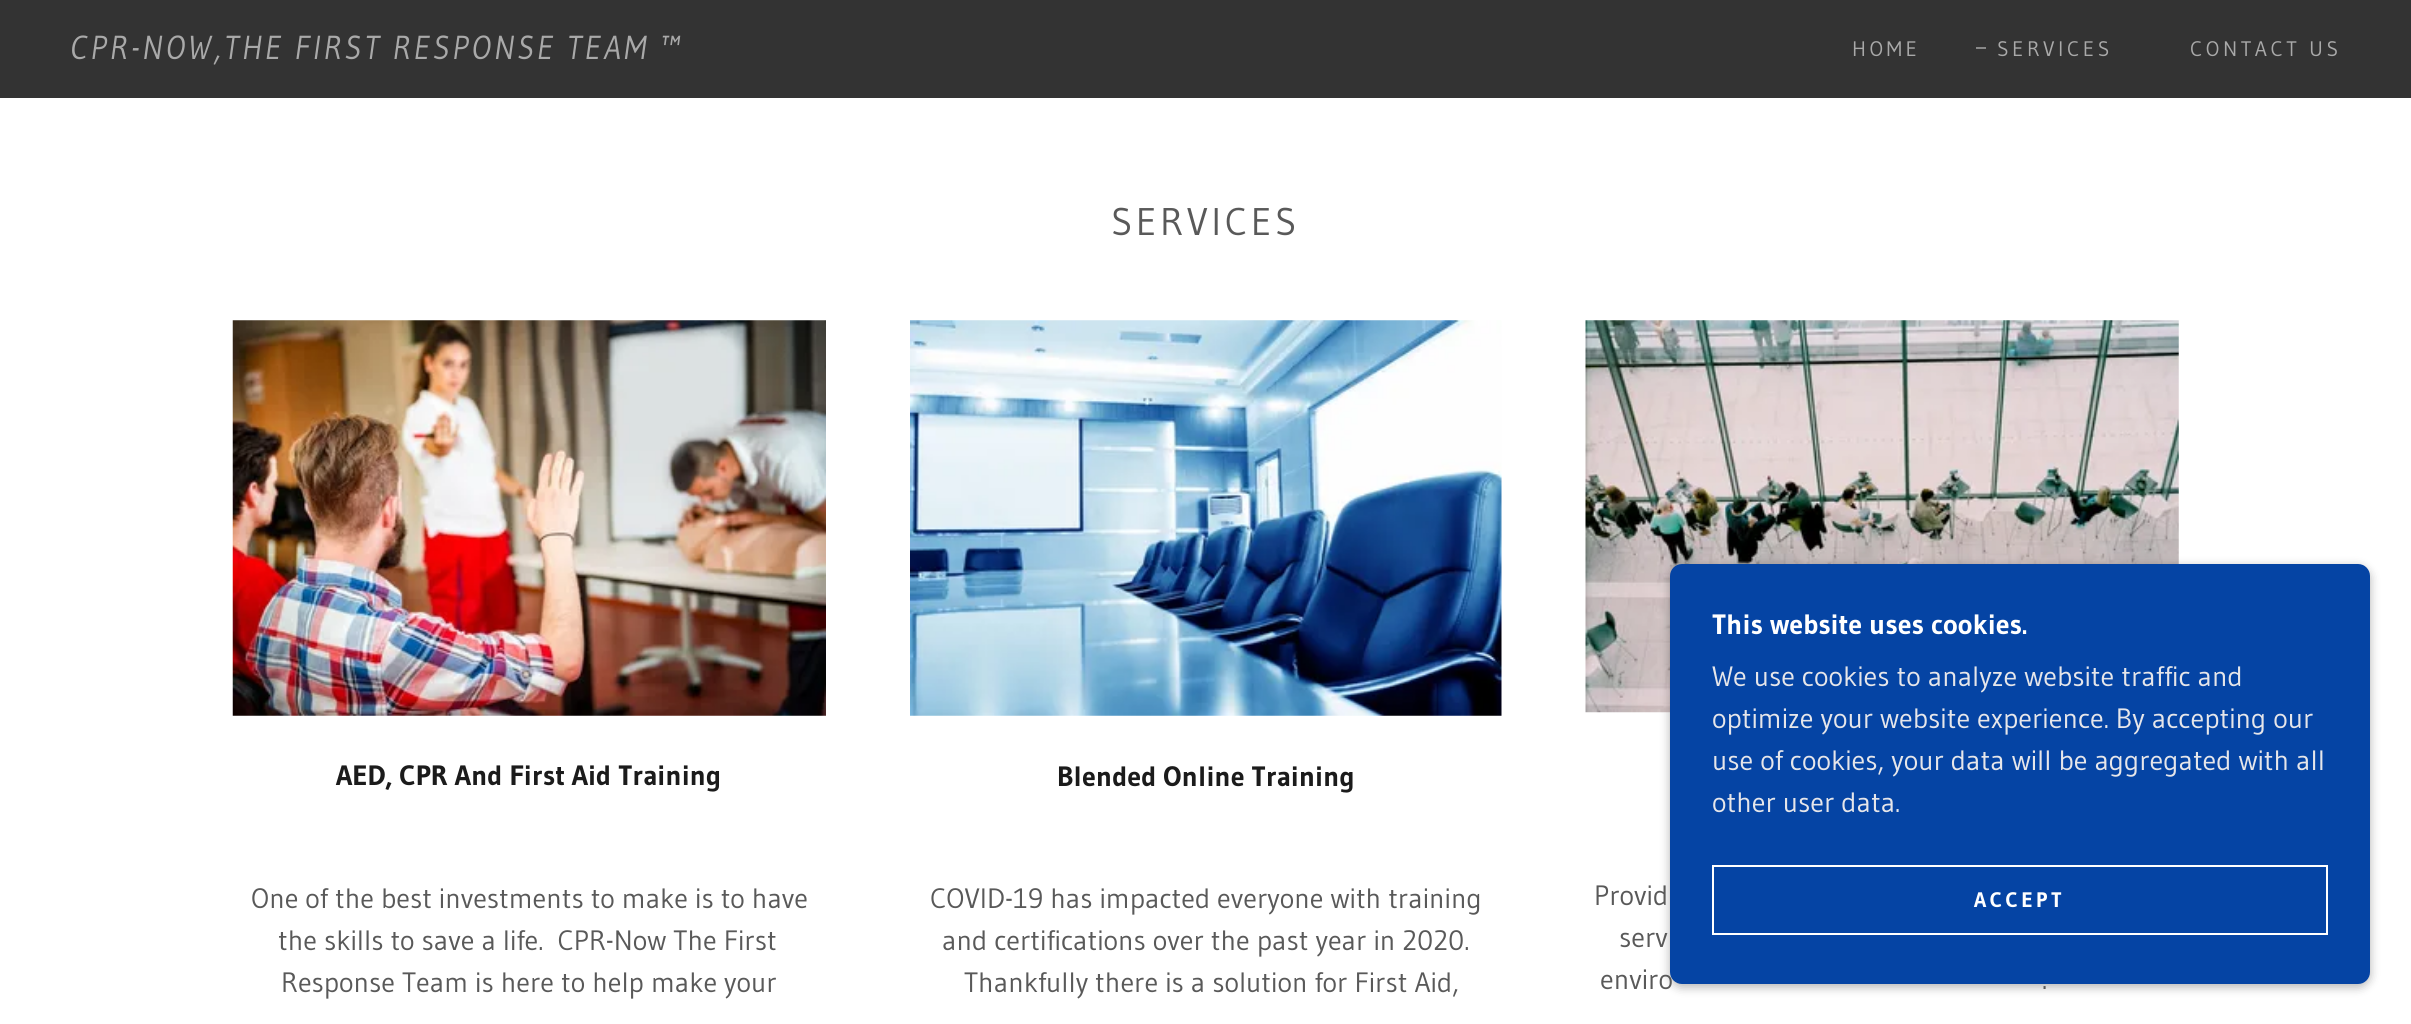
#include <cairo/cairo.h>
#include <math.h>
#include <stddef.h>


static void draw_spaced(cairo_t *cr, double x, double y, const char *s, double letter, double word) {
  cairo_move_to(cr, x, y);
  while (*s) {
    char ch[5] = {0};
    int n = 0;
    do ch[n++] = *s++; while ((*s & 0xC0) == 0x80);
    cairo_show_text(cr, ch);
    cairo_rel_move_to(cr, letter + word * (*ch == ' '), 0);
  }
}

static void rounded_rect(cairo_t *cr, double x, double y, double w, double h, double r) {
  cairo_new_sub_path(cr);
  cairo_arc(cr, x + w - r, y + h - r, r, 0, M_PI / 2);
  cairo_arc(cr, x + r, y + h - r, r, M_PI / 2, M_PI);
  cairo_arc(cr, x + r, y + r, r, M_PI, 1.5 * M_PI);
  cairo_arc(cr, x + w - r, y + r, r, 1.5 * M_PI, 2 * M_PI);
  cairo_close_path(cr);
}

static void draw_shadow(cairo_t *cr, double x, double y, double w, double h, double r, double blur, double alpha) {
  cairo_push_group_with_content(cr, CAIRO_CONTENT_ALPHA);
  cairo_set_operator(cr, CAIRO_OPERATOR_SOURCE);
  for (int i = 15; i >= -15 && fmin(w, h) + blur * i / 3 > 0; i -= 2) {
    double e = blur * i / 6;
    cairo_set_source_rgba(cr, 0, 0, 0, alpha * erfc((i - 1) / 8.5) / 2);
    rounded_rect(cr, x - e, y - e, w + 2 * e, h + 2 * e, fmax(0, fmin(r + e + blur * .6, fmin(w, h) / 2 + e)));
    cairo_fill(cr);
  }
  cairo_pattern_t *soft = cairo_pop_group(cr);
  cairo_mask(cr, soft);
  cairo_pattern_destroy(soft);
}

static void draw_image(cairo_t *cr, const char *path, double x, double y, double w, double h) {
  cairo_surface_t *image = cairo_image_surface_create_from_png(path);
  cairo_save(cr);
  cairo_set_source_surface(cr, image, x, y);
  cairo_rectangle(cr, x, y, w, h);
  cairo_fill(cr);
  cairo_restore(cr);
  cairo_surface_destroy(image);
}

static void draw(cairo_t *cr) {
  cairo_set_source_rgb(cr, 1, 1, 1);
  cairo_paint(cr);
  cairo_set_source_rgb(cr, 51 / 255.0, 51 / 255.0, 51 / 255.0);
  cairo_rectangle(cr, 0, 0, 2411, 98);
  cairo_fill(cr);
  cairo_set_source_rgb(cr, 137 / 255.0, 137 / 255.0, 137 / 255.0);
  cairo_rectangle(cr, 1976, 47, 10, 2);
  cairo_fill(cr);
  draw_image(cr, "images/1.png", 232, 320, 594, 396);
  draw_image(cr, "images/2.png", 910, 320, 592, 396);
  draw_image(cr, "images/3.png", 1585, 320, 594, 393);
  cairo_set_source_rgb(cr, 0, 0, 0);
  draw_shadow(cr, 1670, 567, 700, 420, 12, 5, 0.3);
  cairo_select_font_face(cr, "Gudea", CAIRO_FONT_SLANT_ITALIC, CAIRO_FONT_WEIGHT_NORMAL);
  cairo_set_font_size(cr, 33.25);
  cairo_set_source_rgb(cr, 169 / 255.0, 169 / 255.0, 169 / 255.0);
  draw_spaced(cr, 70, 59, "CPR-NOW,THE FIRST RESPONSE TEAM ™", 3, 0);
  cairo_select_font_face(cr, "Gudea", CAIRO_FONT_SLANT_NORMAL, CAIRO_FONT_WEIGHT_NORMAL);
  cairo_set_font_size(cr, 21);
  draw_spaced(cr, 1852, 56, "HOME", 3.5, 0);
  draw_spaced(cr, 1997, 56, "SERVICES", 3.5, 0);
  draw_spaced(cr, 2190, 56, "CONTACT US", 3.5, 0);
  cairo_set_font_size(cr, 38.5);
  cairo_set_source_rgb(cr, 89 / 255.0, 89 / 255.0, 89 / 255.0);
  draw_spaced(cr, 1111, 235, "SERVICES", 3.5, 0);
  cairo_select_font_face(cr, "Gudea", CAIRO_FONT_SLANT_NORMAL, CAIRO_FONT_WEIGHT_BOLD);
  cairo_set_font_size(cr, 28);
  cairo_set_source_rgb(cr, 27 / 255.0, 27 / 255.0, 27 / 255.0);
  cairo_move_to(cr, 336, 785);
  cairo_show_text(cr, "AED, CPR And First Aid Training");
  cairo_select_font_face(cr, "Gudea", CAIRO_FONT_SLANT_NORMAL, CAIRO_FONT_WEIGHT_NORMAL);
  cairo_set_source_rgb(cr, 89 / 255.0, 89 / 255.0, 89 / 255.0);
  cairo_move_to(cr, 251, 908);
  cairo_show_text(cr, "One of the best investments to make is to have");
  cairo_move_to(cr, 278, 950);
  cairo_show_text(cr, "the skills to save a life.  CPR-Now The First");
  cairo_move_to(cr, 281, 992);
  cairo_show_text(cr, "Response Team is here to help make your");
  cairo_select_font_face(cr, "Gudea", CAIRO_FONT_SLANT_NORMAL, CAIRO_FONT_WEIGHT_BOLD);
  cairo_set_source_rgb(cr, 27 / 255.0, 27 / 255.0, 27 / 255.0);
  cairo_move_to(cr, 1057, 786);
  cairo_show_text(cr, "Blended Online Training");
  cairo_select_font_face(cr, "Gudea", CAIRO_FONT_SLANT_NORMAL, CAIRO_FONT_WEIGHT_NORMAL);
  cairo_set_source_rgb(cr, 89 / 255.0, 89 / 255.0, 89 / 255.0);
  cairo_move_to(cr, 930, 908);
  cairo_show_text(cr, "COVID-19 has impacted everyone with training");
  cairo_move_to(cr, 942, 950);
  cairo_show_text(cr, "and certifications over the past year in 2020.");
  cairo_move_to(cr, 964, 992);
  cairo_show_text(cr, "Thankfully there is a solution for First Aid,");
  cairo_move_to(cr, 1594, 905);
  cairo_show_text(cr, "Provid");
  cairo_move_to(cr, 1619, 947);
  cairo_show_text(cr, "serv");
  cairo_move_to(cr, 1600, 989);
  cairo_show_text(cr, "enviro");
  cairo_move_to(cr, 2042, 989);
  cairo_show_text(cr, ".");
  cairo_set_source_rgb(cr, 5 / 255.0, 68 / 255.0, 164 / 255.0);
  rounded_rect(cr, 1670, 564, 700, 420, 12);
  cairo_fill(cr);
  cairo_select_font_face(cr, "Gudea", CAIRO_FONT_SLANT_NORMAL, CAIRO_FONT_WEIGHT_BOLD);
  cairo_set_source_rgb(cr, 1, 1, 1);
  cairo_move_to(cr, 1712, 634);
  cairo_show_text(cr, "This website uses cookies.");
  cairo_select_font_face(cr, "Gudea", CAIRO_FONT_SLANT_NORMAL, CAIRO_FONT_WEIGHT_NORMAL);
  cairo_set_source_rgb(cr, 230 / 255.0, 230 / 255.0, 234 / 255.0);
  cairo_move_to(cr, 1712, 686);
  cairo_show_text(cr, "We use cookies to analyze website traffic and");
  cairo_move_to(cr, 1712, 728);
  cairo_show_text(cr, "optimize your website experience. By accepting our");
  cairo_move_to(cr, 1712, 770);
  cairo_show_text(cr, "use of cookies, your data will be aggregated with all");
  cairo_move_to(cr, 1712, 812);
  cairo_show_text(cr, "other user data.");
  cairo_rectangle(cr, 1713, 866, 614, 68);
  cairo_set_source_rgb(cr, 1, 1, 1);
  cairo_stroke(cr);
  cairo_select_font_face(cr, "Gudea", CAIRO_FONT_SLANT_NORMAL, CAIRO_FONT_WEIGHT_BOLD);
  cairo_set_font_size(cr, 21);
  draw_spaced(cr, 1974, 907, "ACCEPT", 3.5, 0);
}

int main(void) {
  cairo_surface_t *surface = cairo_image_surface_create(CAIRO_FORMAT_RGB24, 2411, 1024);
  cairo_t *cr = cairo_create(surface);
  cairo_font_options_t *options = cairo_font_options_create();
  cairo_font_options_set_hint_metrics(options, CAIRO_HINT_METRICS_OFF);
  cairo_font_options_set_hint_style(options, CAIRO_HINT_STYLE_NONE);
  cairo_set_font_options(cr, options);
  cairo_set_miter_limit(cr, 4);
  draw(cr);
  cairo_surface_write_to_png(surface, "out.png");
  cairo_font_options_destroy(options);
  cairo_destroy(cr);
  cairo_surface_destroy(surface);
  return 0;
}
